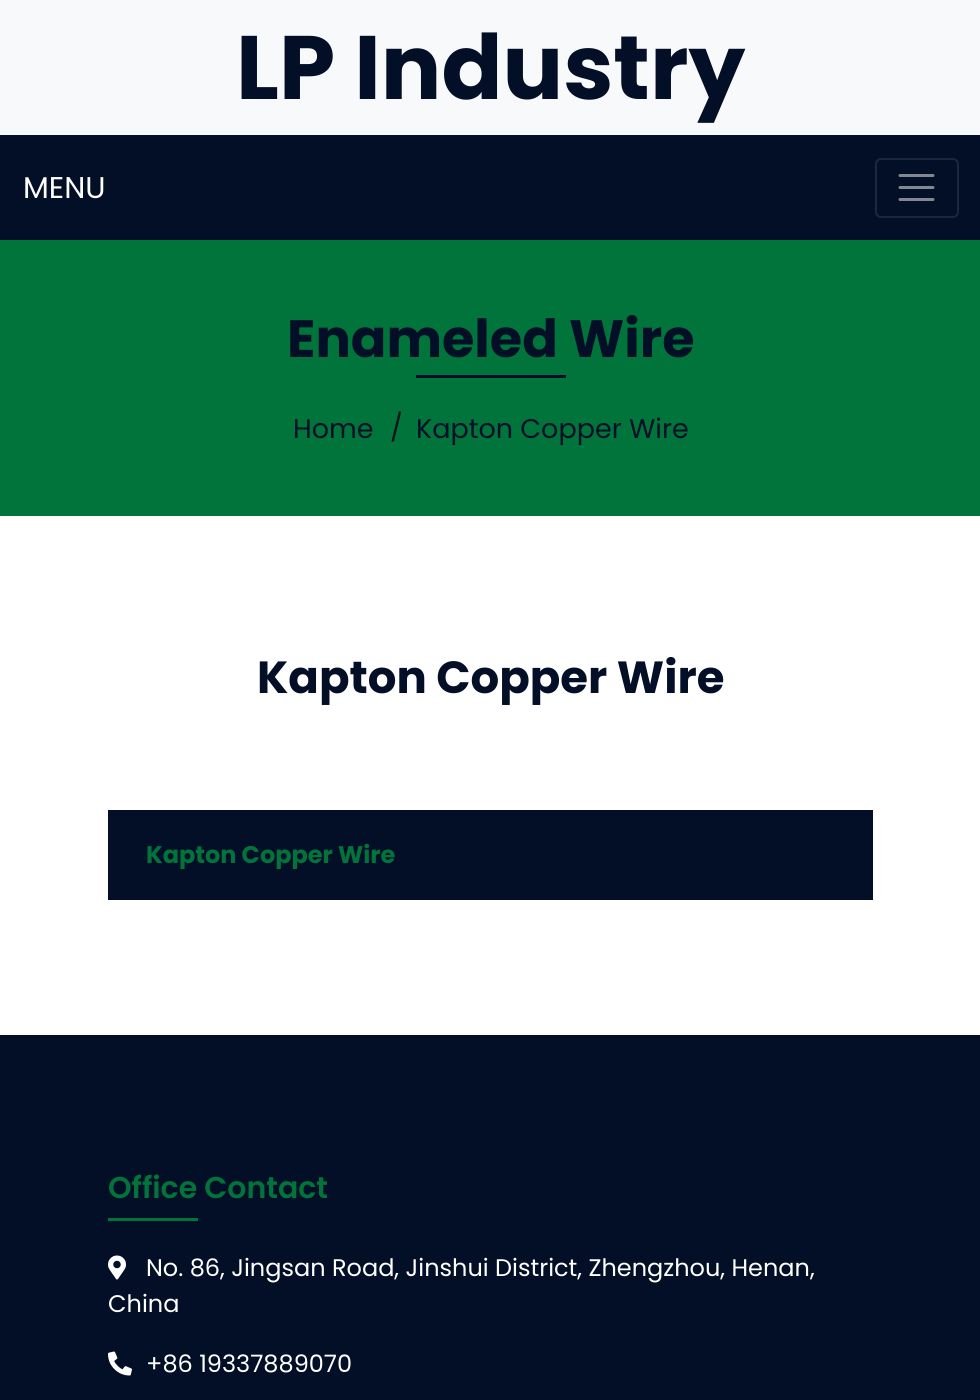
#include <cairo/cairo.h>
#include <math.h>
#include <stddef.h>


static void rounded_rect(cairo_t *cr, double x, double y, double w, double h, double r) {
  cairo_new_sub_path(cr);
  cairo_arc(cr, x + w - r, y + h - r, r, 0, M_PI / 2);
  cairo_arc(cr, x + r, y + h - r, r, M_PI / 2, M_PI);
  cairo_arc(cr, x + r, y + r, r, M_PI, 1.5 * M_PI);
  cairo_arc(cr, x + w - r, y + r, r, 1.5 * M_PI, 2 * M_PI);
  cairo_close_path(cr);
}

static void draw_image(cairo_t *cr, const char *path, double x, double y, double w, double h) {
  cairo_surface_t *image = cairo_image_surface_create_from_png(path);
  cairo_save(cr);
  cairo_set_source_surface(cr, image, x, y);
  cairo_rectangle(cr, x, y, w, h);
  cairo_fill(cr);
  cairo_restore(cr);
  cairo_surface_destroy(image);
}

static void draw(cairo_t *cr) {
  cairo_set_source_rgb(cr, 1, 1, 1);
  cairo_paint(cr);
  cairo_set_source_rgb(cr, 248 / 255.0, 249 / 255.0, 250 / 255.0);
  cairo_rectangle(cr, 0, 0, 980, 135);
  cairo_fill(cr);
  cairo_set_source_rgb(cr, 3 / 255.0, 15 / 255.0, 39 / 255.0);
  cairo_rectangle(cr, 0, 135, 980, 105);
  cairo_fill(cr);
  rounded_rect(cr, 876, 159, 82, 58, 5);
  cairo_set_source_rgb(cr, 28 / 255.0, 39 / 255.0, 61 / 255.0);
  cairo_stroke(cr);
  cairo_new_path(cr);
  cairo_move_to(cr, 900, 175.5);
  cairo_line_to(cr, 933, 175.5);
  cairo_move_to(cr, 900, 187.5);
  cairo_line_to(cr, 933, 187.5);
  cairo_move_to(cr, 900, 199.5);
  cairo_line_to(cr, 933, 199.5);
  cairo_set_source_rgb(cr, 129 / 255.0, 135 / 255.0, 147 / 255.0);
  cairo_set_line_width(cr, 3);
  cairo_set_line_cap(cr, CAIRO_LINE_CAP_ROUND);
  cairo_stroke(cr);
  cairo_set_source_rgb(cr, 0, 116 / 255.0, 59 / 255.0);
  cairo_rectangle(cr, 0, 240, 980, 276);
  cairo_fill(cr);
  cairo_set_source_rgb(cr, 3 / 255.0, 15 / 255.0, 39 / 255.0);
  cairo_rectangle(cr, 416, 375, 150, 3);
  cairo_fill(cr);
  cairo_rectangle(cr, 108, 810, 765, 90);
  cairo_fill(cr);
  cairo_rectangle(cr, 0, 1035, 980, 365);
  cairo_fill(cr);
  cairo_set_source_rgb(cr, 0, 116 / 255.0, 59 / 255.0);
  cairo_rectangle(cr, 108, 1218, 90, 3);
  cairo_fill(cr);
  draw_image(cr, "images/1.png", 108, 1255, 18, 25);
  draw_image(cr, "images/2.png", 108, 1351, 24, 25);
  cairo_select_font_face(cr, "Poppins", CAIRO_FONT_SLANT_NORMAL, CAIRO_FONT_WEIGHT_BOLD);
  cairo_set_font_size(cr, 90);
  cairo_set_source_rgb(cr, 3 / 255.0, 15 / 255.0, 39 / 255.0);
  cairo_move_to(cr, 236, 99);
  cairo_show_text(cr, "LP Industry");
  cairo_select_font_face(cr, "Poppins", CAIRO_FONT_SLANT_NORMAL, CAIRO_FONT_WEIGHT_NORMAL);
  cairo_set_font_size(cr, 30);
  cairo_set_source_rgb(cr, 1, 1, 1);
  cairo_move_to(cr, 23, 198);
  cairo_show_text(cr, "MENU");
  cairo_select_font_face(cr, "Poppins", CAIRO_FONT_SLANT_NORMAL, CAIRO_FONT_WEIGHT_BOLD);
  cairo_set_font_size(cr, 52.5);
  cairo_set_source_rgb(cr, 3 / 255.0, 15 / 255.0, 39 / 255.0);
  cairo_move_to(cr, 287, 357);
  cairo_show_text(cr, "Enameled Wire");
  cairo_select_font_face(cr, "Poppins", CAIRO_FONT_SLANT_NORMAL, CAIRO_FONT_WEIGHT_NORMAL);
  cairo_set_font_size(cr, 27);
  cairo_move_to(cr, 293, 438);
  cairo_show_text(cr, "Home");
  cairo_set_source_rgb(cr, 18 / 255.0, 21 / 255.0, 24 / 255.0);
  cairo_move_to(cr, 390, 437);
  cairo_show_text(cr, "/");
  cairo_set_source_rgb(cr, 3 / 255.0, 15 / 255.0, 39 / 255.0);
  cairo_move_to(cr, 416, 438);
  cairo_show_text(cr, "Kapton Copper Wire");
  cairo_select_font_face(cr, "Poppins", CAIRO_FONT_SLANT_NORMAL, CAIRO_FONT_WEIGHT_BOLD);
  cairo_set_font_size(cr, 45);
  cairo_move_to(cr, 257, 693);
  cairo_show_text(cr, "Kapton Copper Wire");
  cairo_save(cr);
  cairo_rectangle(cr, 108, 840, 675, 29);
  cairo_clip(cr);
  cairo_set_font_size(cr, 24);
  cairo_set_source_rgb(cr, 0, 116 / 255.0, 59 / 255.0);
  cairo_move_to(cr, 146, 863);
  cairo_show_text(cr, "Kapton Copper Wire");
  cairo_restore(cr);
  cairo_select_font_face(cr, "Poppins SemiBold", CAIRO_FONT_SLANT_NORMAL, CAIRO_FONT_WEIGHT_NORMAL);
  cairo_set_font_size(cr, 30);
  cairo_set_source_rgb(cr, 0, 116 / 255.0, 59 / 255.0);
  cairo_move_to(cr, 108, 1198);
  cairo_show_text(cr, "Office Contact");
  cairo_select_font_face(cr, "Poppins", CAIRO_FONT_SLANT_NORMAL, CAIRO_FONT_WEIGHT_NORMAL);
  cairo_set_font_size(cr, 24);
  cairo_set_source_rgb(cr, 1, 1, 1);
  cairo_move_to(cr, 146, 1276);
  cairo_show_text(cr, "No. 86, Jingsan Road, Jinshui District, Zhengzhou, Henan,");
  cairo_move_to(cr, 108, 1312);
  cairo_show_text(cr, "China");
  cairo_move_to(cr, 146, 1372);
  cairo_show_text(cr, "+86 19337889070");
}

int main(void) {
  cairo_surface_t *surface = cairo_image_surface_create(CAIRO_FORMAT_RGB24, 980, 1400);
  cairo_t *cr = cairo_create(surface);
  cairo_font_options_t *options = cairo_font_options_create();
  cairo_font_options_set_hint_metrics(options, CAIRO_HINT_METRICS_OFF);
  cairo_font_options_set_hint_style(options, CAIRO_HINT_STYLE_NONE);
  cairo_set_font_options(cr, options);
  cairo_set_miter_limit(cr, 4);
  draw(cr);
  cairo_surface_write_to_png(surface, "out.png");
  cairo_font_options_destroy(options);
  cairo_destroy(cr);
  cairo_surface_destroy(surface);
  return 0;
}
